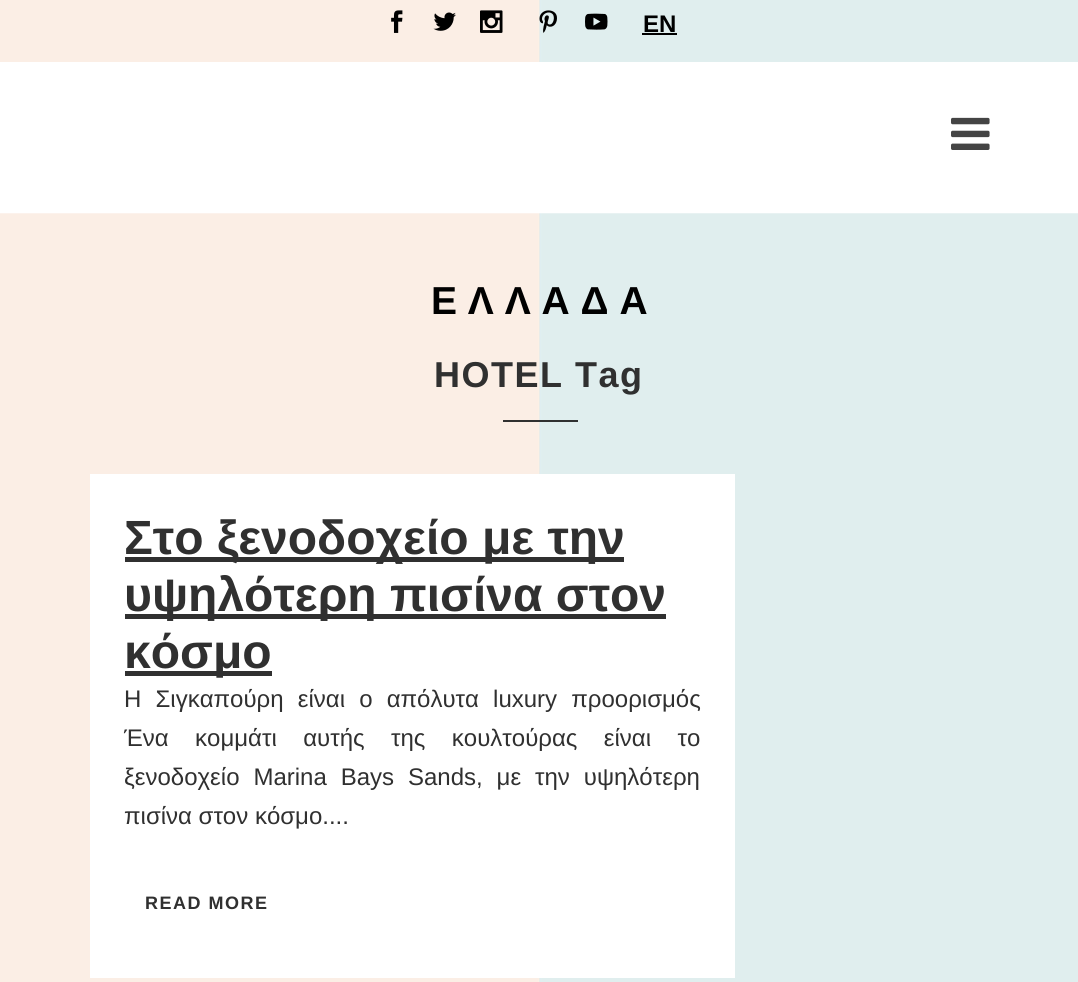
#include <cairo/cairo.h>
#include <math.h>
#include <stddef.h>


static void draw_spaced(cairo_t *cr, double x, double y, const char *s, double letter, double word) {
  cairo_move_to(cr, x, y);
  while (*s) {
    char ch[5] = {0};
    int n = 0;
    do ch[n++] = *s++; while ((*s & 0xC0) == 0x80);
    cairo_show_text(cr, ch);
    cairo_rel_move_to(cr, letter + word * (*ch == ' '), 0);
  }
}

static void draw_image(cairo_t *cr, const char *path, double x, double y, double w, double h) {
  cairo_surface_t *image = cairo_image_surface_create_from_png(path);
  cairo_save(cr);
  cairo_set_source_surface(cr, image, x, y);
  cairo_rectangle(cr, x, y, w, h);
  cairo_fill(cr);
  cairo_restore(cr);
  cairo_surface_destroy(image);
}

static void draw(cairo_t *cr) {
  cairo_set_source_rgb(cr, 1, 1, 1);
  cairo_paint(cr);
  draw_image(cr, "images/1.png", 0, 0, 1078, 982);
  draw_image(cr, "images/2.png", 391, 10, 12, 23);
  draw_image(cr, "images/3.png", 433, 12, 23, 19);
  draw_image(cr, "images/4.png", 480, 10, 23, 23);
  draw_image(cr, "images/5.png", 539, 10, 18, 23);
  draw_image(cr, "images/6.png", 585, 13, 23, 17);
  cairo_set_source_rgb(cr, 0, 0, 0);
  cairo_rectangle(cr, 642, 33, 35, 2);
  cairo_fill(cr);
  cairo_set_source_rgb(cr, 1, 1, 1);
  cairo_rectangle(cr, 0, 62, 1078, 151);
  cairo_fill(cr);
  cairo_set_source_rgba(cr, 1, 1, 1, 0.25);
  cairo_rectangle(cr, 0, 213, 1078, 1);
  cairo_fill(cr);
  draw_image(cr, "images/7.png", 951, 117, 39, 33);
  cairo_set_source_rgb(cr, 48 / 255.0, 48 / 255.0, 48 / 255.0);
  cairo_rectangle(cr, 503, 420, 75, 2);
  cairo_fill(cr);
  cairo_set_source_rgb(cr, 1, 1, 1);
  cairo_rectangle(cr, 90, 474, 645, 504);
  cairo_fill(cr);
  cairo_set_source_rgb(cr, 48 / 255.0, 48 / 255.0, 48 / 255.0);
  cairo_rectangle(cr, 125, 557, 499, 5);
  cairo_fill(cr);
  cairo_rectangle(cr, 125, 614, 541, 5);
  cairo_fill(cr);
  cairo_rectangle(cr, 125, 671, 147, 5);
  cairo_fill(cr);
  cairo_select_font_face(cr, "Liberation Sans", CAIRO_FONT_SLANT_NORMAL, CAIRO_FONT_WEIGHT_BOLD);
  cairo_set_font_size(cr, 24);
  cairo_set_source_rgb(cr, 0, 0, 0);
  cairo_move_to(cr, 643, 32);
  cairo_show_text(cr, "EN");
  cairo_set_font_size(cr, 39);
  cairo_move_to(cr, 431, 314);
  cairo_show_text(cr, "Ε Λ Λ Α Δ Α");
  cairo_set_font_size(cr, 36);
  cairo_set_source_rgb(cr, 48 / 255.0, 48 / 255.0, 48 / 255.0);
  draw_spaced(cr, 434, 387, "HOTEL Tag", 1.5, 0);
  cairo_set_font_size(cr, 48);
  cairo_move_to(cr, 124, 554);
  cairo_show_text(cr, "Στο ξενοδοχείο με την");
  cairo_move_to(cr, 124, 611);
  cairo_show_text(cr, "υψηλότερη πισίνα στον");
  cairo_move_to(cr, 124, 668);
  cairo_show_text(cr, "κόσμο");
  cairo_select_font_face(cr, "Liberation Sans", CAIRO_FONT_SLANT_NORMAL, CAIRO_FONT_WEIGHT_NORMAL);
  cairo_set_font_size(cr, 24);
  draw_spaced(cr, 124, 707, "Η Σιγκαπούρη είναι o απόλυτα luxury προορισμός", 0, 7.5);
  draw_spaced(cr, 124, 746, "Ένα κομμάτι αυτής της κουλτούρας είναι το", 0, 19.75);
  draw_spaced(cr, 124, 785, "ξενοδοχείο Marina Bays Sands, με την υψηλότερη", 0, 7.25);
  cairo_move_to(cr, 124, 824);
  cairo_show_text(cr, "πισίνα στον κόσμο....");
  cairo_select_font_face(cr, "Liberation Sans", CAIRO_FONT_SLANT_NORMAL, CAIRO_FONT_WEIGHT_BOLD);
  cairo_set_font_size(cr, 18);
  draw_spaced(cr, 145, 909, "READ MORE", 1.5, 0);
}

int main(void) {
  cairo_surface_t *surface = cairo_image_surface_create(CAIRO_FORMAT_RGB24, 1078, 982);
  cairo_t *cr = cairo_create(surface);
  cairo_font_options_t *options = cairo_font_options_create();
  cairo_font_options_set_hint_metrics(options, CAIRO_HINT_METRICS_OFF);
  cairo_font_options_set_hint_style(options, CAIRO_HINT_STYLE_NONE);
  cairo_set_font_options(cr, options);
  cairo_set_miter_limit(cr, 4);
  draw(cr);
  cairo_surface_write_to_png(surface, "out.png");
  cairo_font_options_destroy(options);
  cairo_destroy(cr);
  cairo_surface_destroy(surface);
  return 0;
}
